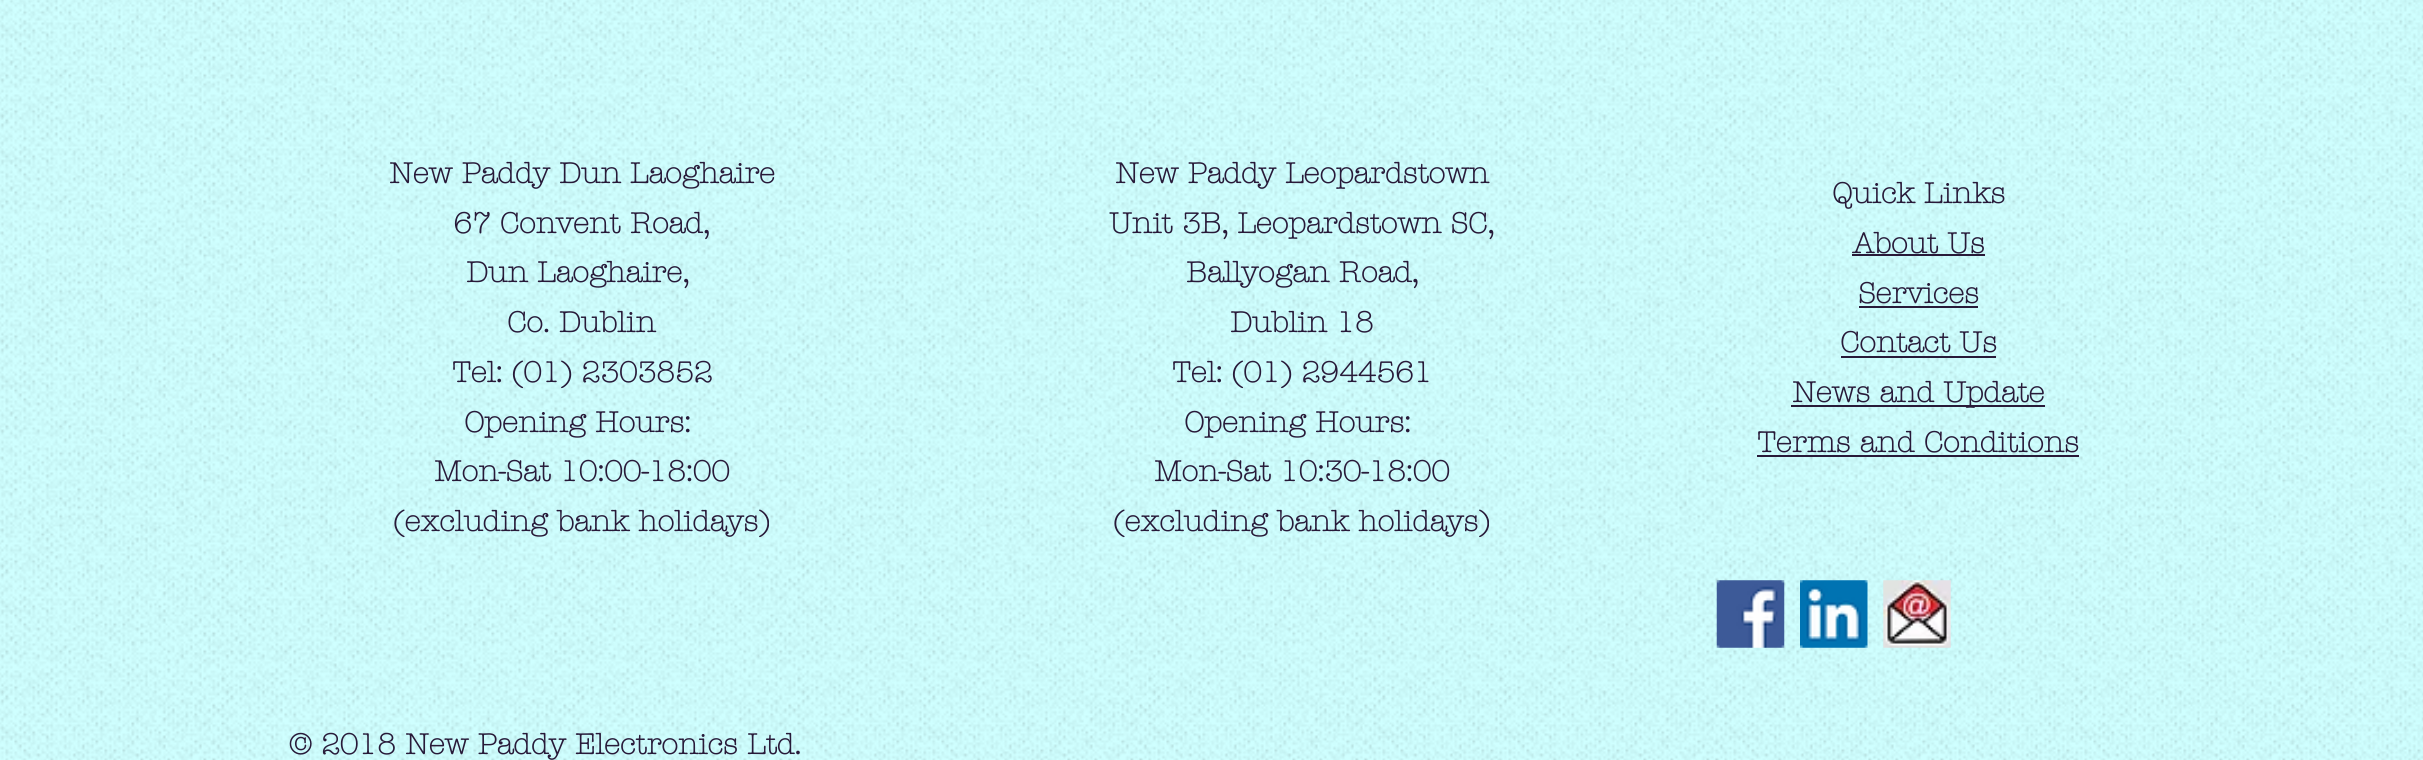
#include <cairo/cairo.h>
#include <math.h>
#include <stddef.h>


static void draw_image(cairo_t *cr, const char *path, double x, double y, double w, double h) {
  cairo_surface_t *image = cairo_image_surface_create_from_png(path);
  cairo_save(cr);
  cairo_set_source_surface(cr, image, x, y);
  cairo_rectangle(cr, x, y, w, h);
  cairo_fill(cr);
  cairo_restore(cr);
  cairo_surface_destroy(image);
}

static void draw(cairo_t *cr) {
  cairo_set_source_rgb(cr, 207 / 255.0, 1, 1);
  cairo_paint(cr);
  draw_image(cr, "images/1.png", 0, 0, 2423, 760);
  cairo_set_source_rgb(cr, 40 / 255.0, 26 / 255.0, 57 / 255.0);
  cairo_rectangle(cr, 1852, 254, 133, 2);
  cairo_fill(cr);
  cairo_rectangle(cr, 1859, 306, 119, 2);
  cairo_fill(cr);
  cairo_rectangle(cr, 1841, 356, 155, 2);
  cairo_fill(cr);
  cairo_rectangle(cr, 1791, 405, 254, 2);
  cairo_fill(cr);
  cairo_rectangle(cr, 1757, 455, 322, 2);
  cairo_fill(cr);
  draw_image(cr, "images/2.png", 1716, 580, 69, 68);
  draw_image(cr, "images/3.png", 1800, 580, 68, 68);
  draw_image(cr, "images/4.png", 1883, 580, 68, 68);
  cairo_select_font_face(cr, "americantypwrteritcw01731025", CAIRO_FONT_SLANT_NORMAL, CAIRO_FONT_WEIGHT_BOLD);
  cairo_set_font_size(cr, 29.25);
  cairo_move_to(cr, 389, 183);
  cairo_show_text(cr, "New Paddy Dun Laoghaire");
  cairo_move_to(cr, 453, 233);
  cairo_show_text(cr, "67 Convent Road,");
  cairo_move_to(cr, 466, 282);
  cairo_show_text(cr, "Dun Laoghaire,");
  cairo_move_to(cr, 507, 332);
  cairo_show_text(cr, "Co. Dublin");
  cairo_move_to(cr, 452, 382);
  cairo_show_text(cr, "Tel: (01) 2303852");
  cairo_move_to(cr, 464, 432);
  cairo_show_text(cr, "Opening Hours:");
  cairo_move_to(cr, 434, 481);
  cairo_show_text(cr, "Mon-Sat 10:00-18:00");
  cairo_move_to(cr, 393, 531);
  cairo_show_text(cr, "(excluding bank holidays)");
  cairo_move_to(cr, 1115, 183);
  cairo_show_text(cr, "New Paddy Leopardstown");
  cairo_move_to(cr, 1109, 233);
  cairo_show_text(cr, "Unit 3B, Leopardstown SC,");
  cairo_move_to(cr, 1186, 282);
  cairo_show_text(cr, "Ballyogan Road,");
  cairo_move_to(cr, 1230, 332);
  cairo_show_text(cr, "Dublin 18");
  cairo_move_to(cr, 1172, 382);
  cairo_show_text(cr, "Tel: (01) 2944561");
  cairo_move_to(cr, 1184, 432);
  cairo_show_text(cr, "Opening Hours:");
  cairo_move_to(cr, 1154, 481);
  cairo_show_text(cr, "Mon-Sat 10:30-18:00");
  cairo_move_to(cr, 1113, 531);
  cairo_show_text(cr, "(excluding bank holidays)");
  cairo_move_to(cr, 1832, 203);
  cairo_show_text(cr, "Quick Links");
  cairo_move_to(cr, 1852, 253);
  cairo_show_text(cr, "About Us");
  cairo_move_to(cr, 1858, 303);
  cairo_show_text(cr, "Services");
  cairo_move_to(cr, 1840, 352);
  cairo_show_text(cr, "Contact Us");
  cairo_move_to(cr, 1792, 402);
  cairo_show_text(cr, "News and Update");
  cairo_move_to(cr, 1757, 452);
  cairo_show_text(cr, "Terms and Conditions");
  cairo_move_to(cr, 289, 754);
  cairo_show_text(cr, "© 2018 New Paddy Electronics Ltd.");
}

int main(void) {
  cairo_surface_t *surface = cairo_image_surface_create(CAIRO_FORMAT_RGB24, 2423, 760);
  cairo_t *cr = cairo_create(surface);
  cairo_font_options_t *options = cairo_font_options_create();
  cairo_font_options_set_hint_metrics(options, CAIRO_HINT_METRICS_OFF);
  cairo_font_options_set_hint_style(options, CAIRO_HINT_STYLE_NONE);
  cairo_set_font_options(cr, options);
  cairo_set_miter_limit(cr, 4);
  draw(cr);
  cairo_surface_write_to_png(surface, "out.png");
  cairo_font_options_destroy(options);
  cairo_destroy(cr);
  cairo_surface_destroy(surface);
  return 0;
}
